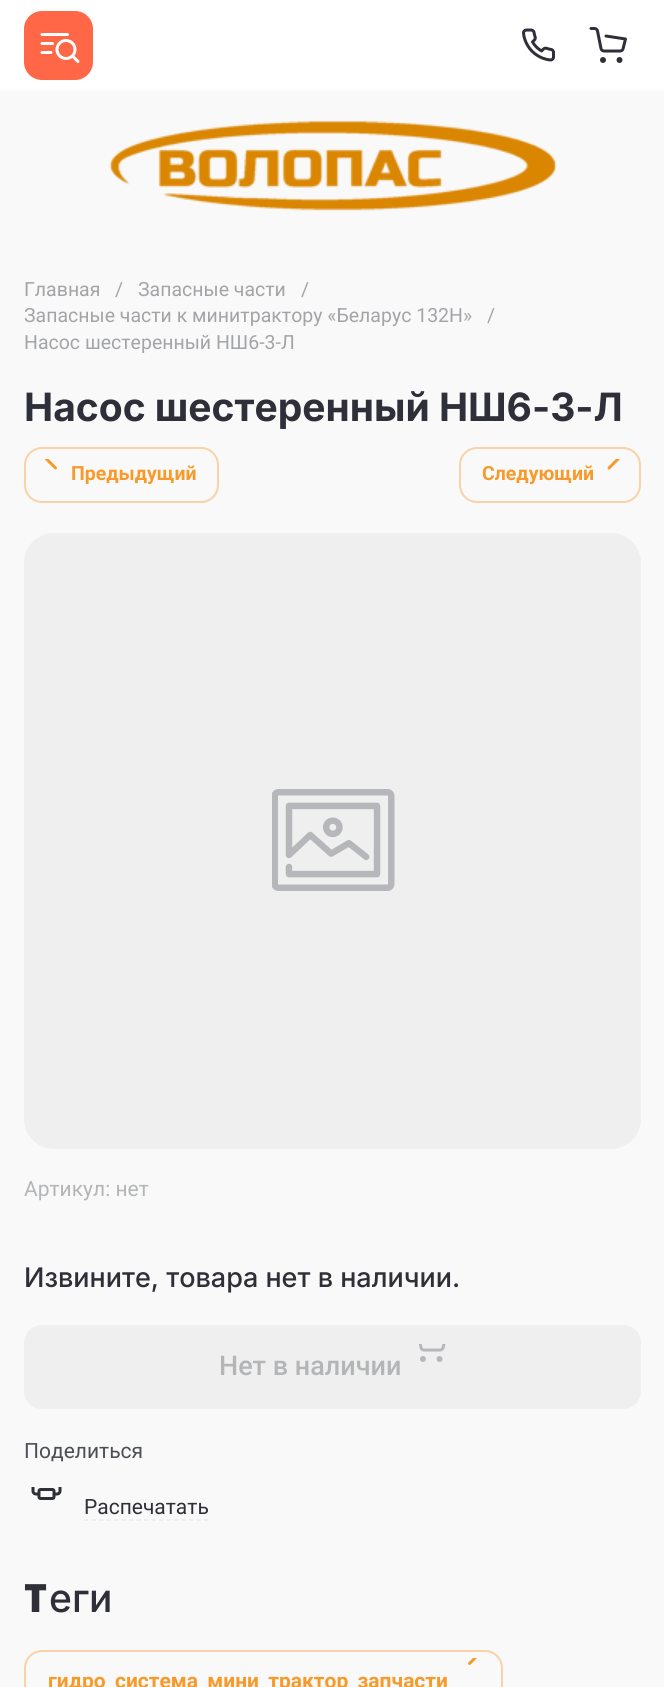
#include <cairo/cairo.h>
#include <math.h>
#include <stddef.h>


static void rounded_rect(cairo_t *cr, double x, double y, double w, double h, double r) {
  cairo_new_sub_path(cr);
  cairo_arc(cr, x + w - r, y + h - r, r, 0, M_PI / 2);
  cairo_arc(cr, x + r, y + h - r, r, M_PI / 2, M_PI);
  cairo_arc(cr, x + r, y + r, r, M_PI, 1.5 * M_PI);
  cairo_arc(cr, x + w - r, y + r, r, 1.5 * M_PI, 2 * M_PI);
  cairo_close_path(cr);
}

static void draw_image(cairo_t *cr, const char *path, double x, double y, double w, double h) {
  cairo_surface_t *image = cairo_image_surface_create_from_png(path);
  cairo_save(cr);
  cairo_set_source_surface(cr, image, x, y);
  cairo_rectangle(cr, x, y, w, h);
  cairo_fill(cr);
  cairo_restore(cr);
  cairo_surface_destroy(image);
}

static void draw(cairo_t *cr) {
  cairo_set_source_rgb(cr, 249 / 255.0, 249 / 255.0, 249 / 255.0);
  cairo_paint(cr);
  cairo_set_source_rgb(cr, 1, 1, 1);
  cairo_rectangle(cr, 0, 0, 664, 90);
  cairo_fill(cr);
  cairo_set_source_rgb(cr, 1, 103 / 255.0, 70 / 255.0);
  rounded_rect(cr, 24, 11, 69, 69, 18);
  cairo_fill(cr);
  draw_image(cr, "images/1.png", 40, 33, 40, 30);
  draw_image(cr, "images/2.png", 522, 28, 33, 34);
  draw_image(cr, "images/3.png", 589, 27, 38, 36);
  draw_image(cr, "images/4.png", 109, 120, 448, 91);
  rounded_rect(cr, 25, 448, 193, 54, 17);
  cairo_set_source_rgb(cr, 249 / 255.0, 211 / 255.0, 167 / 255.0);
  cairo_stroke(cr);
  draw_image(cr, "images/5.png", 45, 459, 12, 11);
  rounded_rect(cr, 460, 448, 180, 54, 17);
  cairo_stroke(cr);
  draw_image(cr, "images/6.png", 607, 459, 13, 11);
  cairo_set_source_rgb(cr, 239 / 255.0, 239 / 255.0, 239 / 255.0);
  rounded_rect(cr, 24, 533, 617, 616, 30);
  cairo_fill(cr);
  draw_image(cr, "images/7.png", 272, 789, 123, 102);
  rounded_rect(cr, 24, 1325, 617, 84, 18);
  cairo_fill(cr);
  draw_image(cr, "images/8.png", 418, 1344, 28, 18);
  draw_image(cr, "images/9.png", 31, 1487, 31, 13);
  cairo_new_path(cr);
  cairo_move_to(cr, 84, 1520);
  cairo_line_to(cr, 208.5, 1520);
  cairo_set_source_rgb(cr, 233 / 255.0, 234 / 255.0, 239 / 255.0);
  cairo_set_line_width(cr, 1.5);
  cairo_set_dash(cr, (double[]){4.5, 3}, 2, 0);
  cairo_stroke(cr);
  rounded_rect(cr, 25, 1651, 477, 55, 17);
  cairo_set_source_rgb(cr, 249 / 255.0, 211 / 255.0, 167 / 255.0);
  cairo_set_line_width(cr, 2);
  cairo_set_dash(cr, NULL, 0, 0);
  cairo_stroke(cr);
  draw_image(cr, "images/10.png", 468, 1658, 9, 7);
  cairo_select_font_face(cr, "Roboto", CAIRO_FONT_SLANT_NORMAL, CAIRO_FONT_WEIGHT_NORMAL);
  cairo_set_font_size(cr, 19.5);
  cairo_set_source_rgb(cr, 162 / 255.0, 164 / 255.0, 167 / 255.0);
  cairo_move_to(cr, 24, 296);
  cairo_show_text(cr, "Главная");
  cairo_move_to(cr, 115, 296);
  cairo_show_text(cr, "/");
  cairo_move_to(cr, 138, 296);
  cairo_show_text(cr, "Запасные части");
  cairo_move_to(cr, 301, 296);
  cairo_show_text(cr, "/");
  cairo_move_to(cr, 24, 322);
  cairo_show_text(cr, "Запасные части к минитрактору «Беларус 132Н»");
  cairo_move_to(cr, 487, 322);
  cairo_show_text(cr, "/");
  cairo_move_to(cr, 24, 349);
  cairo_show_text(cr, "Насос шестеренный НШ6-3-Л");
  cairo_select_font_face(cr, "Inter", CAIRO_FONT_SLANT_NORMAL, CAIRO_FONT_WEIGHT_BOLD);
  cairo_set_font_size(cr, 39);
  cairo_set_source_rgb(cr, 46 / 255.0, 47 / 255.0, 56 / 255.0);
  cairo_move_to(cr, 24, 421);
  cairo_show_text(cr, "Насос шестеренный НШ6-3-Л");
  cairo_select_font_face(cr, "Roboto", CAIRO_FONT_SLANT_NORMAL, CAIRO_FONT_WEIGHT_BOLD);
  cairo_set_font_size(cr, 19.5);
  cairo_set_source_rgb(cr, 248 / 255.0, 154 / 255.0, 43 / 255.0);
  cairo_move_to(cr, 71, 480);
  cairo_show_text(cr, "Предыдущий");
  cairo_move_to(cr, 482, 480);
  cairo_show_text(cr, "Следующий");
  cairo_select_font_face(cr, "Roboto", CAIRO_FONT_SLANT_NORMAL, CAIRO_FONT_WEIGHT_NORMAL);
  cairo_set_font_size(cr, 21);
  cairo_set_source_rgb(cr, 179 / 255.0, 181 / 255.0, 183 / 255.0);
  cairo_move_to(cr, 24, 1196);
  cairo_show_text(cr, "Артикул: нет");
  cairo_select_font_face(cr, "Inter Medium", CAIRO_FONT_SLANT_NORMAL, CAIRO_FONT_WEIGHT_NORMAL);
  cairo_set_font_size(cr, 27);
  cairo_set_source_rgb(cr, 46 / 255.0, 47 / 255.0, 56 / 255.0);
  cairo_move_to(cr, 24, 1287);
  cairo_show_text(cr, "Извините, товара нет в наличии.");
  cairo_select_font_face(cr, "Roboto Medium", CAIRO_FONT_SLANT_NORMAL, CAIRO_FONT_WEIGHT_NORMAL);
  cairo_set_source_rgb(cr, 179 / 255.0, 181 / 255.0, 183 / 255.0);
  cairo_move_to(cr, 219, 1375);
  cairo_show_text(cr, "Нет в наличии");
  cairo_select_font_face(cr, "Roboto", CAIRO_FONT_SLANT_NORMAL, CAIRO_FONT_WEIGHT_NORMAL);
  cairo_set_font_size(cr, 21);
  cairo_set_source_rgb(cr, 75 / 255.0, 78 / 255.0, 84 / 255.0);
  cairo_move_to(cr, 24, 1458);
  cairo_show_text(cr, "Поделиться");
  cairo_set_source_rgb(cr, 46 / 255.0, 47 / 255.0, 56 / 255.0);
  cairo_move_to(cr, 84, 1514);
  cairo_show_text(cr, "Распечатать");
  cairo_select_font_face(cr, "Noto Sans Black", CAIRO_FONT_SLANT_NORMAL, CAIRO_FONT_WEIGHT_NORMAL);
  cairo_set_font_size(cr, 39);
  cairo_move_to(cr, 24, 1612);
  cairo_show_text(cr, "Т");
  cairo_select_font_face(cr, "Inter Medium", CAIRO_FONT_SLANT_NORMAL, CAIRO_FONT_WEIGHT_NORMAL);
  cairo_move_to(cr, 49, 1612);
  cairo_show_text(cr, "еги");
  cairo_select_font_face(cr, "Roboto", CAIRO_FONT_SLANT_NORMAL, CAIRO_FONT_WEIGHT_BOLD);
  cairo_set_font_size(cr, 21);
  cairo_set_source_rgb(cr, 248 / 255.0, 154 / 255.0, 43 / 255.0);
  cairo_move_to(cr, 48, 1688);
  cairo_show_text(cr, "гидро_система_мини_трактор_запчасти");
}

int main(void) {
  cairo_surface_t *surface = cairo_image_surface_create(CAIRO_FORMAT_RGB24, 664, 1687);
  cairo_t *cr = cairo_create(surface);
  cairo_font_options_t *options = cairo_font_options_create();
  cairo_font_options_set_hint_metrics(options, CAIRO_HINT_METRICS_OFF);
  cairo_font_options_set_hint_style(options, CAIRO_HINT_STYLE_NONE);
  cairo_set_font_options(cr, options);
  cairo_set_miter_limit(cr, 4);
  draw(cr);
  cairo_surface_write_to_png(surface, "out.png");
  cairo_font_options_destroy(options);
  cairo_destroy(cr);
  cairo_surface_destroy(surface);
  return 0;
}
